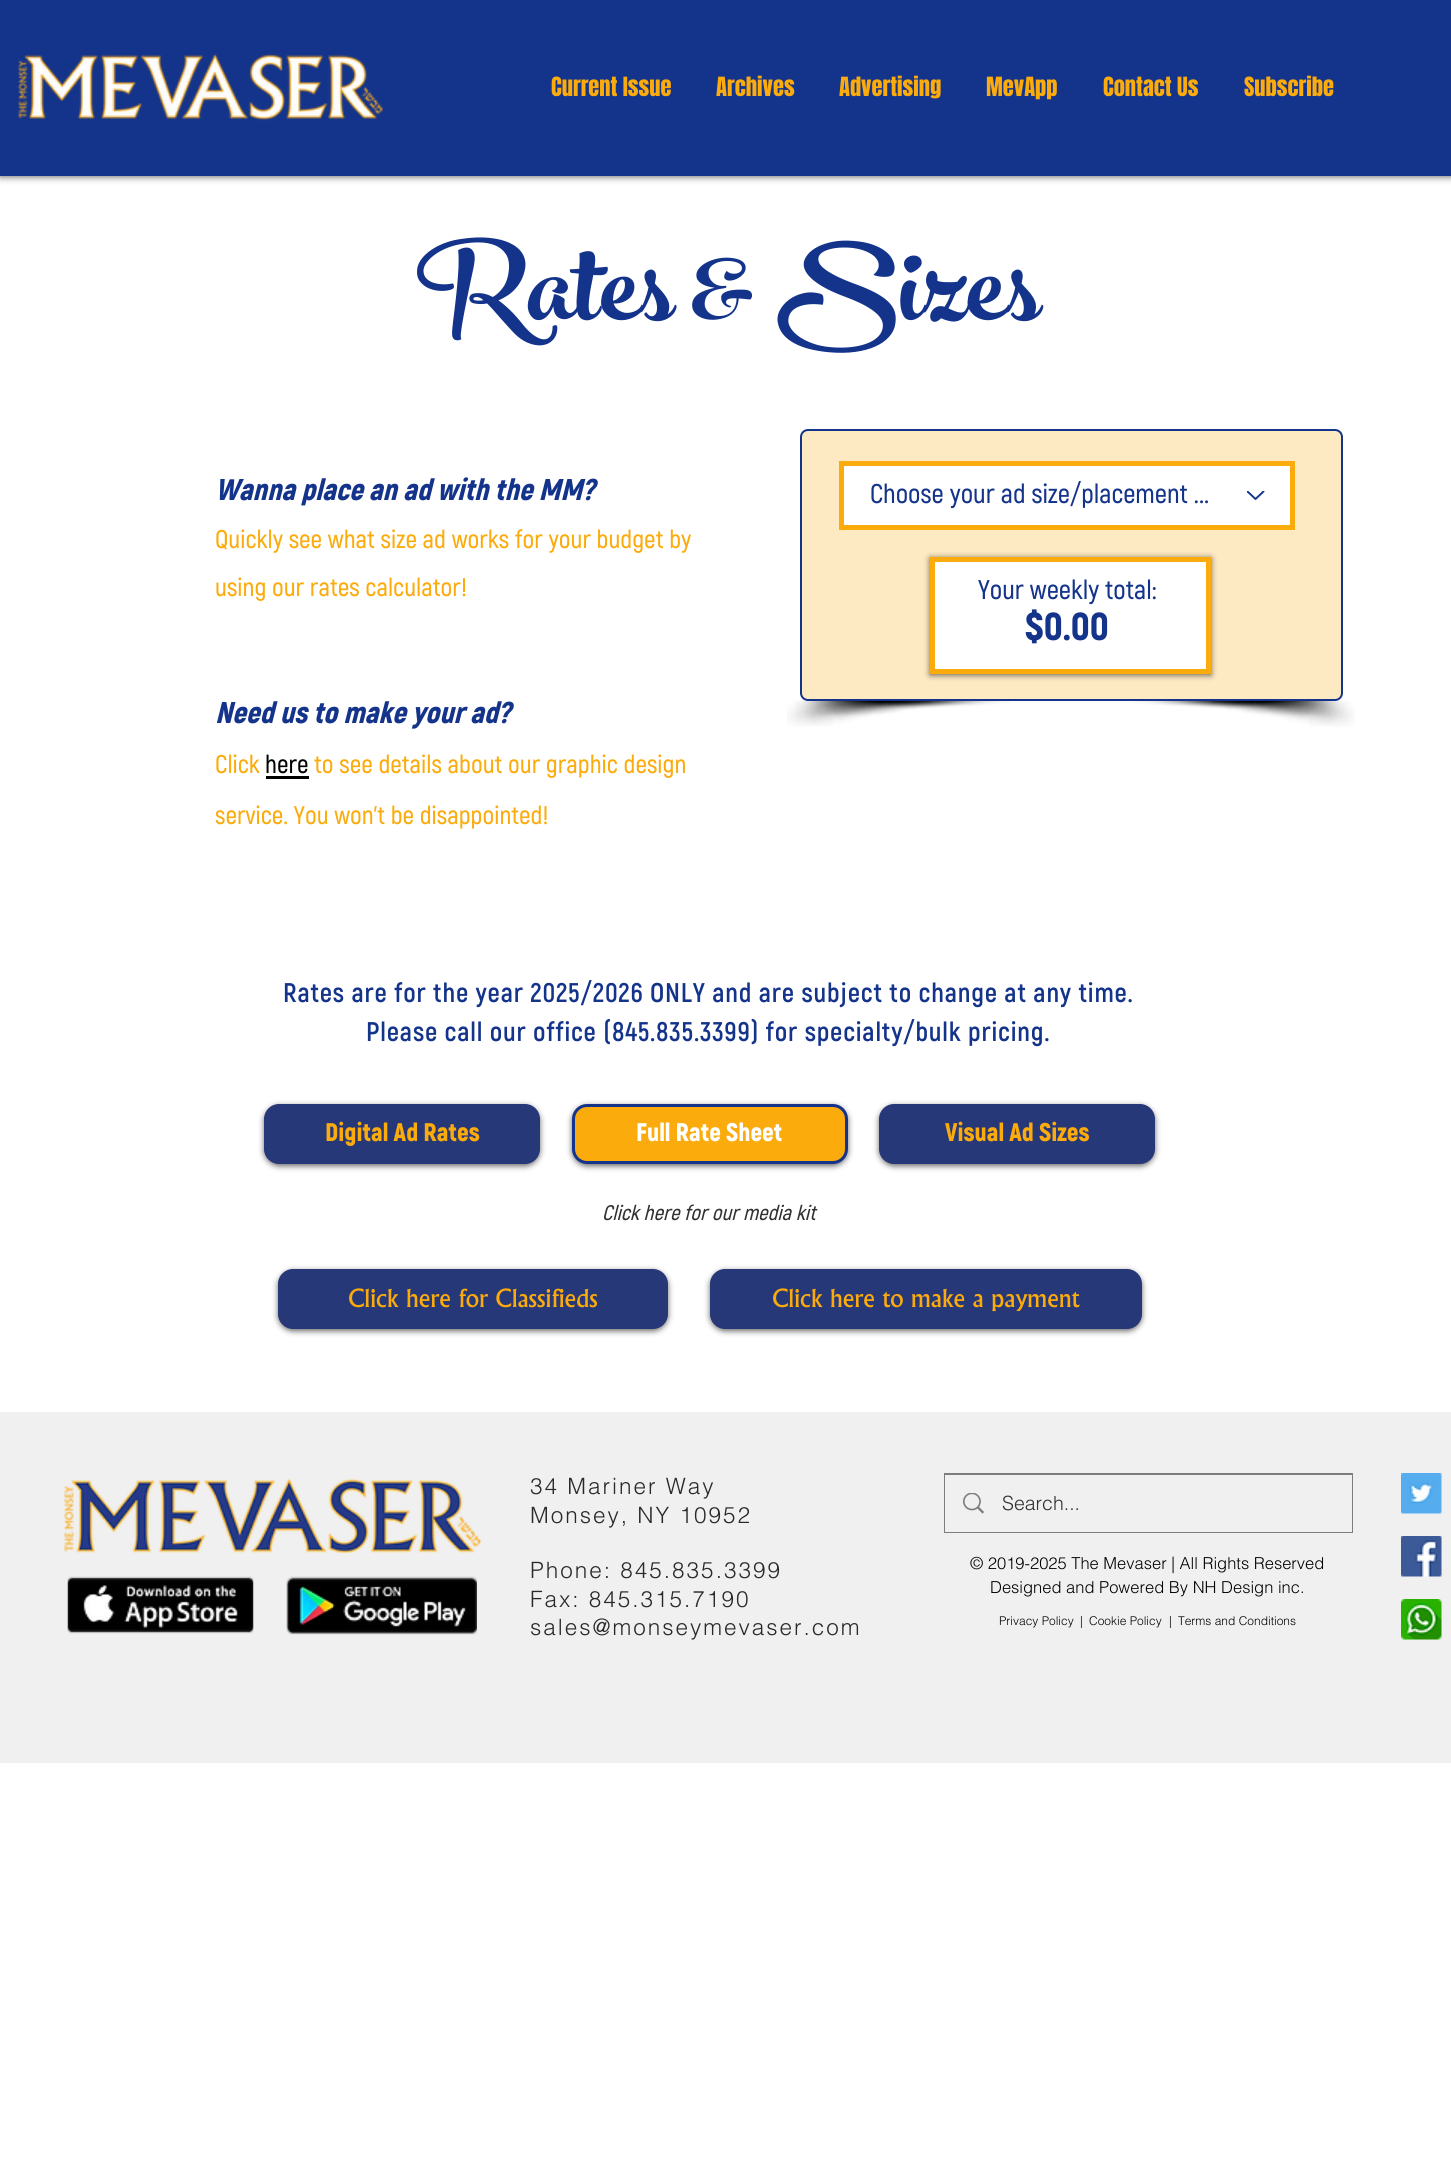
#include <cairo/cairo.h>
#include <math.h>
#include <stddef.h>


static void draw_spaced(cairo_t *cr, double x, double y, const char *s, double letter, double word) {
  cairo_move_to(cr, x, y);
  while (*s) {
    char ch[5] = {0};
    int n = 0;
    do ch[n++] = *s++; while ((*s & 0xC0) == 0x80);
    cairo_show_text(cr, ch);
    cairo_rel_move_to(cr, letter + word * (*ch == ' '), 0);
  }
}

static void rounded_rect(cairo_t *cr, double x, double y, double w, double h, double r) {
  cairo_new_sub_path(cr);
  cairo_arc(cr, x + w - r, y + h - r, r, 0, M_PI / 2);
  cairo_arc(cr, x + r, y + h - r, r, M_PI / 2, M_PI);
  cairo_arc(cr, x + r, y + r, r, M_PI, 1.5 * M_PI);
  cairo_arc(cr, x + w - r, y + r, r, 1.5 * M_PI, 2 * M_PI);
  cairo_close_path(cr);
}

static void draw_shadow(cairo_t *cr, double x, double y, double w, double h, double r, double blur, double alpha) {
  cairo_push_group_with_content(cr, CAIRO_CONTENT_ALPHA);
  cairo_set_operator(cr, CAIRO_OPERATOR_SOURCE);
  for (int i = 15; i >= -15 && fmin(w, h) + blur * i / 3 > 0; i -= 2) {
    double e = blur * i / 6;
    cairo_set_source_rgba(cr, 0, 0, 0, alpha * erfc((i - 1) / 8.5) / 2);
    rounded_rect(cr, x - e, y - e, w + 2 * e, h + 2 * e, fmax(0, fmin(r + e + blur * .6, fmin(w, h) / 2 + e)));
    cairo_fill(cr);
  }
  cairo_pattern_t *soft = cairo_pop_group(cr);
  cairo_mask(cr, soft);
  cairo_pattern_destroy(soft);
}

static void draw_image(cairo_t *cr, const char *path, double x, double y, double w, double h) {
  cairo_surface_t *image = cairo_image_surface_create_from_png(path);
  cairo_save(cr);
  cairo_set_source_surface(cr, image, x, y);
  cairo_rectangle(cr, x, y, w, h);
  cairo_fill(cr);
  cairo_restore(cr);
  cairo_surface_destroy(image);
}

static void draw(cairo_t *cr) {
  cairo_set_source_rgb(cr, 1, 1, 1);
  cairo_paint(cr);
  cairo_set_source_rgb(cr, 0, 0, 0);
  draw_shadow(cr, 0, 0, 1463, 176, 0, 4, 0.7);
  cairo_set_source_rgb(cr, 20 / 255.0, 52 / 255.0, 139 / 255.0);
  cairo_rectangle(cr, 0, 0, 1451, 176);
  cairo_fill(cr);
  draw_image(cr, "images/1.png", 17, 54, 366, 67);
  draw_image(cr, "images/3.png", 787, 700, 223, 27);
  draw_image(cr, "images/4.png", 1132, 700, 223, 27);
  cairo_set_source_rgba(cr, 251 / 255.0, 171 / 255.0, 12 / 255.0, 0.25);
  rounded_rect(cr, 801, 430, 541, 270, 7);
  cairo_fill_preserve(cr);
  cairo_set_source_rgb(cr, 20 / 255.0, 52 / 255.0, 139 / 255.0);
  cairo_stroke(cr);
  cairo_set_source_rgb(cr, 1, 1, 1);
  cairo_rectangle(cr, 841.5, 463.5, 451, 64);
  cairo_fill_preserve(cr);
  cairo_set_source_rgb(cr, 251 / 255.0, 171 / 255.0, 12 / 255.0);
  cairo_set_line_width(cr, 5);
  cairo_stroke(cr);
  draw_image(cr, "images/2.png", 1247, 491, 18, 9);
  cairo_set_source_rgb(cr, 0, 0, 0);
  draw_shadow(cr, 930, 558, 281, 117, 0, 3, 0.6);
  cairo_set_source_rgb(cr, 1, 1, 1);
  cairo_rectangle(cr, 932.5, 559.5, 276, 112);
  cairo_fill_preserve(cr);
  cairo_set_source_rgb(cr, 251 / 255.0, 171 / 255.0, 12 / 255.0);
  cairo_stroke(cr);
  cairo_set_source_rgb(cr, 0, 0, 0);
  cairo_rectangle(cr, 266, 776, 43, 3);
  cairo_fill(cr);
  cairo_set_source_rgb(cr, 0, 0, 0);
  draw_shadow(cr, 264, 1106, 276, 60, 15, 3, 0.6);
  cairo_set_source_rgb(cr, 39 / 255.0, 56 / 255.0, 120 / 255.0);
  rounded_rect(cr, 264, 1104, 276, 60, 15);
  cairo_fill(cr);
  cairo_set_source_rgb(cr, 0, 0, 0);
  draw_shadow(cr, 572, 1106, 276, 60, 15, 3, 0.6);
  cairo_set_source_rgb(cr, 251 / 255.0, 171 / 255.0, 12 / 255.0);
  rounded_rect(cr, 573.5, 1105.5, 273, 57, 13.5);
  cairo_fill_preserve(cr);
  cairo_set_source_rgb(cr, 20 / 255.0, 52 / 255.0, 139 / 255.0);
  cairo_set_line_width(cr, 3);
  cairo_stroke(cr);
  cairo_set_source_rgb(cr, 0, 0, 0);
  draw_shadow(cr, 879, 1106, 276, 60, 15, 3, 0.6);
  cairo_set_source_rgb(cr, 39 / 255.0, 56 / 255.0, 120 / 255.0);
  rounded_rect(cr, 879, 1104, 276, 60, 15);
  cairo_fill(cr);
  cairo_set_source_rgb(cr, 0, 0, 0);
  draw_shadow(cr, 278, 1271, 390, 60, 15, 3, 0.6);
  cairo_set_source_rgb(cr, 39 / 255.0, 56 / 255.0, 120 / 255.0);
  rounded_rect(cr, 278, 1269, 390, 60, 15);
  cairo_fill(cr);
  cairo_set_source_rgb(cr, 0, 0, 0);
  draw_shadow(cr, 710, 1271, 432, 60, 15, 3, 0.6);
  cairo_set_source_rgb(cr, 39 / 255.0, 56 / 255.0, 120 / 255.0);
  rounded_rect(cr, 710, 1269, 432, 60, 15);
  cairo_fill(cr);
  cairo_set_source_rgb(cr, 240 / 255.0, 240 / 255.0, 240 / 255.0);
  cairo_rectangle(cr, 0, 1412, 1451, 351);
  cairo_fill(cr);
  draw_image(cr, "images/5.png", 64, 1478, 418, 76);
  cairo_rectangle(cr, 945, 1474, 407, 58);
  cairo_set_source_rgb(cr, 125 / 255.0, 125 / 255.0, 125 / 255.0);
  cairo_set_line_width(cr, 2);
  cairo_stroke(cr);
  cairo_set_source_rgb(cr, 240 / 255.0, 240 / 255.0, 240 / 255.0);
  cairo_rectangle(cr, 945, 1475, 407, 57);
  cairo_fill(cr);
  draw_image(cr, "images/6.png", 963, 1493, 21, 21);
  draw_image(cr, "images/7.png", 1401, 1473, 41, 41);
  draw_image(cr, "images/8.png", 1401, 1536, 41, 41);
  draw_image(cr, "images/9.png", 1401, 1599, 41, 41);
  draw_image(cr, "images/10.png", 67, 1576, 187, 58);
  draw_image(cr, "images/11.png", 286, 1576, 191, 59);
  cairo_select_font_face(cr, "Anton", CAIRO_FONT_SLANT_NORMAL, CAIRO_FONT_WEIGHT_NORMAL);
  cairo_set_font_size(cr, 22.5);
  cairo_set_source_rgb(cr, 251 / 255.0, 171 / 255.0, 12 / 255.0);
  cairo_move_to(cr, 551, 96);
  cairo_show_text(cr, "Current Issue");
  cairo_move_to(cr, 716, 96);
  cairo_show_text(cr, "Archives");
  cairo_move_to(cr, 839, 96);
  cairo_show_text(cr, "Advertising");
  cairo_move_to(cr, 986, 96);
  cairo_show_text(cr, "MevApp");
  cairo_move_to(cr, 1103, 96);
  cairo_show_text(cr, "Contact Us");
  cairo_move_to(cr, 1244, 96);
  cairo_show_text(cr, "Subscribe");
  cairo_select_font_face(cr, "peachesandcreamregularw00", CAIRO_FONT_SLANT_NORMAL, CAIRO_FONT_WEIGHT_NORMAL);
  cairo_set_font_size(cr, 162);
  cairo_set_source_rgb(cr, 20 / 255.0, 52 / 255.0, 139 / 255.0);
  draw_spaced(cr, 417, 320, "Rates & Sizes", 1.6, 0);
  cairo_select_font_face(cr, "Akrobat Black", CAIRO_FONT_SLANT_ITALIC, CAIRO_FONT_WEIGHT_NORMAL);
  cairo_set_font_size(cr, 30);
  cairo_move_to(cr, 215, 500);
  cairo_show_text(cr, "Wanna place an ad with the MM?");
  cairo_select_font_face(cr, "Akrobat SemiBold", CAIRO_FONT_SLANT_NORMAL, CAIRO_FONT_WEIGHT_NORMAL);
  cairo_set_font_size(cr, 25.5);
  cairo_set_source_rgb(cr, 251 / 255.0, 171 / 255.0, 12 / 255.0);
  cairo_move_to(cr, 215, 548);
  cairo_show_text(cr, "Quickly see what size ad works for your budget by");
  cairo_move_to(cr, 215, 596);
  cairo_show_text(cr, "using our rates calculator!");
  cairo_set_font_size(cr, 27);
  cairo_set_source_rgb(cr, 20 / 255.0, 52 / 255.0, 139 / 255.0);
  cairo_move_to(cr, 870, 503);
  cairo_show_text(cr, "Choose your ad size/placement ...");
  cairo_move_to(cr, 978, 599);
  cairo_show_text(cr, "Your weekly total:");
  cairo_select_font_face(cr, "Akrobat Black", CAIRO_FONT_SLANT_NORMAL, CAIRO_FONT_WEIGHT_NORMAL);
  cairo_set_font_size(cr, 39);
  cairo_move_to(cr, 1025, 640);
  cairo_show_text(cr, "$0.00");
  cairo_select_font_face(cr, "Akrobat Black", CAIRO_FONT_SLANT_ITALIC, CAIRO_FONT_WEIGHT_NORMAL);
  cairo_set_font_size(cr, 30);
  cairo_move_to(cr, 215, 723);
  cairo_show_text(cr, "Need us to make your ad?");
  cairo_select_font_face(cr, "Akrobat SemiBold", CAIRO_FONT_SLANT_NORMAL, CAIRO_FONT_WEIGHT_NORMAL);
  cairo_set_font_size(cr, 25.5);
  cairo_set_source_rgb(cr, 251 / 255.0, 171 / 255.0, 12 / 255.0);
  cairo_move_to(cr, 215, 773);
  cairo_show_text(cr, "Click");
  cairo_set_source_rgb(cr, 0, 0, 0);
  cairo_move_to(cr, 265, 773);
  cairo_show_text(cr, "here");
  cairo_set_source_rgb(cr, 251 / 255.0, 171 / 255.0, 12 / 255.0);
  cairo_move_to(cr, 314, 773);
  cairo_show_text(cr, "to see details about our graphic design");
  cairo_move_to(cr, 215, 824);
  cairo_show_text(cr, "service. You won't be disappointed!");
  cairo_select_font_face(cr, "Akrobat", CAIRO_FONT_SLANT_NORMAL, CAIRO_FONT_WEIGHT_BOLD);
  cairo_set_font_size(cr, 27);
  cairo_set_source_rgb(cr, 20 / 255.0, 52 / 255.0, 139 / 255.0);
  draw_spaced(cr, 283, 1002, "Rates are for the year 2025/2026 ONLY and are subject to change at any time.", 0.8, 0);
  draw_spaced(cr, 366, 1041, "Please call our office (845.835.3399) for specialty/bulk pricing.", 0.8, 0);
  cairo_select_font_face(cr, "Akrobat Black", CAIRO_FONT_SLANT_NORMAL, CAIRO_FONT_WEIGHT_NORMAL);
  cairo_set_font_size(cr, 25.5);
  cairo_set_source_rgb(cr, 251 / 255.0, 171 / 255.0, 12 / 255.0);
  cairo_move_to(cr, 325, 1141);
  cairo_show_text(cr, "Digital Ad Rates");
  cairo_set_source_rgb(cr, 1, 1, 1);
  cairo_move_to(cr, 636, 1141);
  cairo_show_text(cr, "Full Rate Sheet");
  cairo_set_source_rgb(cr, 251 / 255.0, 171 / 255.0, 12 / 255.0);
  cairo_move_to(cr, 945, 1141);
  cairo_show_text(cr, "Visual Ad Sizes");
  cairo_select_font_face(cr, "Akrobat SemiBold", CAIRO_FONT_SLANT_ITALIC, CAIRO_FONT_WEIGHT_NORMAL);
  cairo_set_font_size(cr, 21);
  cairo_set_source_rgb(cr, 48 / 255.0, 48 / 255.0, 48 / 255.0);
  cairo_move_to(cr, 602, 1220);
  cairo_show_text(cr, "Click here for our media kit");
  cairo_select_font_face(cr, "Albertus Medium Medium", CAIRO_FONT_SLANT_NORMAL, CAIRO_FONT_WEIGHT_NORMAL);
  cairo_set_font_size(cr, 24);
  cairo_set_source_rgb(cr, 251 / 255.0, 171 / 255.0, 12 / 255.0);
  cairo_move_to(cr, 348, 1307);
  cairo_show_text(cr, "Click here for Classifieds");
  cairo_move_to(cr, 772, 1307);
  cairo_show_text(cr, "Click here to make a payment");
  cairo_select_font_face(cr, "helvetica Light", CAIRO_FONT_SLANT_NORMAL, CAIRO_FONT_WEIGHT_NORMAL);
  cairo_set_font_size(cr, 22.5);
  cairo_set_source_rgb(cr, 41 / 255.0, 41 / 255.0, 41 / 255.0);
  draw_spaced(cr, 530, 1494, "34 Mariner Way", 2, 0);
  draw_spaced(cr, 530, 1523, "Monsey, NY 10952", 2, 0);
  draw_spaced(cr, 530, 1578, "Phone: 845.835.3399", 2, 0);
  draw_spaced(cr, 530, 1607, "Fax: 845.315.7190", 2, 0);
  draw_spaced(cr, 530, 1635, "sales@monseymevaser.com", 2, 0);
  cairo_set_font_size(cr, 19.5);
  cairo_set_source_rgb(cr, 48 / 255.0, 48 / 255.0, 48 / 255.0);
  cairo_move_to(cr, 1002, 1510);
  cairo_show_text(cr, "Search...");
  cairo_set_font_size(cr, 16.5);
  cairo_set_source_rgb(cr, 0, 0, 0);
  cairo_move_to(cr, 970, 1569);
  cairo_show_text(cr, "© 2019-2025 The Mevaser | All Rights Reserved");
  cairo_move_to(cr, 990, 1593);
  cairo_show_text(cr, "Designed and Powered By NH Design inc.");
  cairo_set_font_size(cr, 12);
  cairo_move_to(cr, 999, 1625);
  cairo_show_text(cr, "Privacy Policy");
  cairo_move_to(cr, 1080, 1625);
  cairo_show_text(cr, "|");
  cairo_move_to(cr, 1089, 1625);
  cairo_show_text(cr, "Cookie Policy");
  cairo_move_to(cr, 1169, 1625);
  cairo_show_text(cr, "|");
  cairo_move_to(cr, 1178, 1625);
  cairo_show_text(cr, "Terms and Conditions");
}

int main(void) {
  cairo_surface_t *surface = cairo_image_surface_create(CAIRO_FORMAT_RGB24, 1451, 2182);
  cairo_t *cr = cairo_create(surface);
  cairo_font_options_t *options = cairo_font_options_create();
  cairo_font_options_set_hint_metrics(options, CAIRO_HINT_METRICS_OFF);
  cairo_font_options_set_hint_style(options, CAIRO_HINT_STYLE_NONE);
  cairo_set_font_options(cr, options);
  cairo_set_miter_limit(cr, 4);
  draw(cr);
  cairo_surface_write_to_png(surface, "out.png");
  cairo_font_options_destroy(options);
  cairo_destroy(cr);
  cairo_surface_destroy(surface);
  return 0;
}
